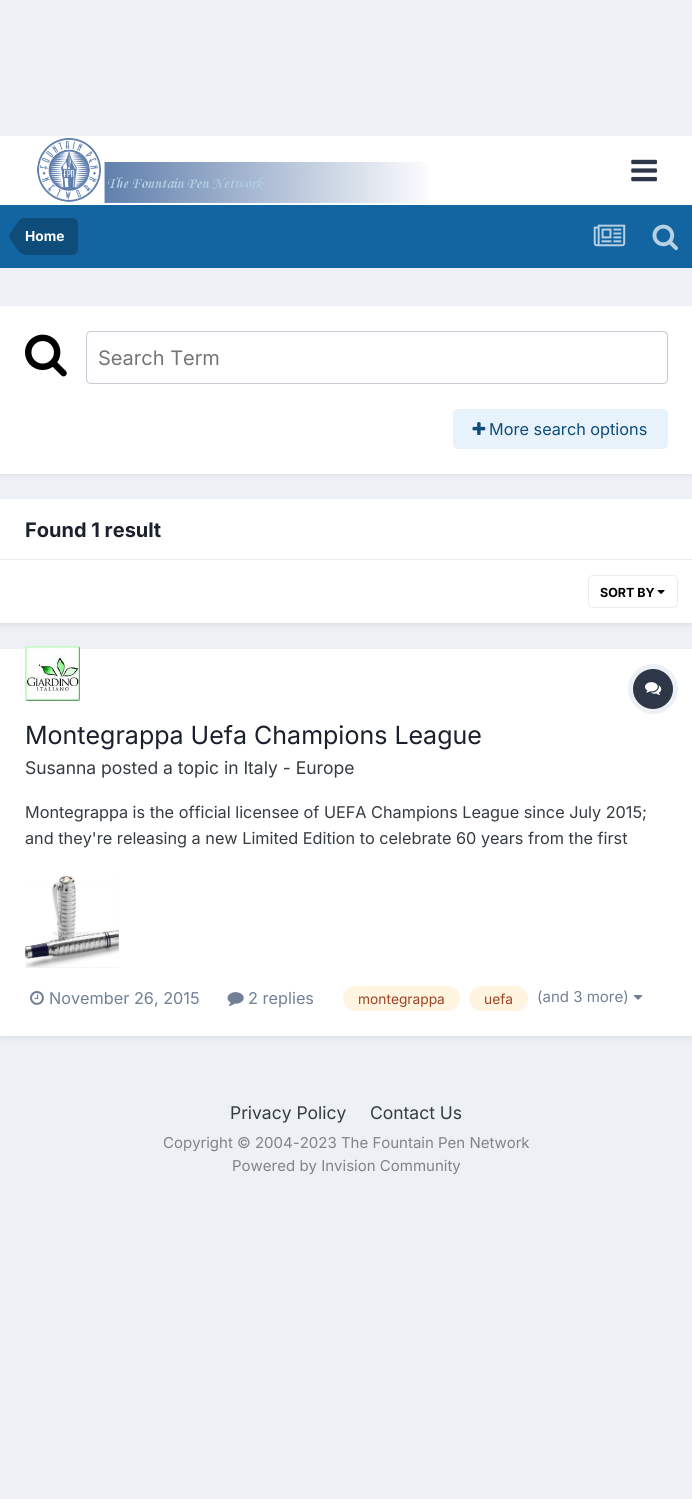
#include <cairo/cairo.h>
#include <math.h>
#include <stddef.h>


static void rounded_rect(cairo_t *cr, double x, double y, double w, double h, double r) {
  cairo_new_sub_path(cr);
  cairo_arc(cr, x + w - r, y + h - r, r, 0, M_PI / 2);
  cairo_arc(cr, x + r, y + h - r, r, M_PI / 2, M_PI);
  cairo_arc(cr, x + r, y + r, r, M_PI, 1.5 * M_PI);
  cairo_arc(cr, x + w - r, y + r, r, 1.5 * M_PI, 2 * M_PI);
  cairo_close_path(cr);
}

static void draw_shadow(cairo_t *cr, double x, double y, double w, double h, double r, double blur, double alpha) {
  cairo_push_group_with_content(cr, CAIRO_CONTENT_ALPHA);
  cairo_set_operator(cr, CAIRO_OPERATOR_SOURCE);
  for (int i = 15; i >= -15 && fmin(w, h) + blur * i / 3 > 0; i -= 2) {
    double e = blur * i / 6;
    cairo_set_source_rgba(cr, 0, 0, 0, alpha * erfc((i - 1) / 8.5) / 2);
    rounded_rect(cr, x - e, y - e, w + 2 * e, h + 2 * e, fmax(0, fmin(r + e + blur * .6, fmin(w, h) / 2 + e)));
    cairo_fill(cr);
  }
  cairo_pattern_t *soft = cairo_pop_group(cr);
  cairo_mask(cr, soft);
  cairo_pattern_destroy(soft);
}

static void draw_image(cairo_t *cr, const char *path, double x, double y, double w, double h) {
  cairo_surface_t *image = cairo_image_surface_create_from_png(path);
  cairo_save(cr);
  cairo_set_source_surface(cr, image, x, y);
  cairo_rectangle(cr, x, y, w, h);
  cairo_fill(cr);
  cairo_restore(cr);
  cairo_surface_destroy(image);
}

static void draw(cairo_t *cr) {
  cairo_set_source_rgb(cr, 237 / 255.0, 240 / 255.0, 244 / 255.0);
  cairo_paint(cr);
  cairo_set_source_rgb(cr, 1, 1, 1);
  cairo_rectangle(cr, 0, 136, 692, 69);
  cairo_fill(cr);
  draw_image(cr, "images/1.png", 37, 138, 391, 65);
  draw_image(cr, "images/2.png", 631, 159, 26, 23);
  cairo_set_source_rgb(cr, 18 / 255.0, 101 / 255.0, 161 / 255.0);
  cairo_rectangle(cr, 0, 205, 692, 63);
  cairo_fill(cr);
  cairo_set_source_rgb(cr, 14 / 255.0, 76 / 255.0, 121 / 255.0);
  cairo_new_path(cr);
  cairo_move_to(cr, 25, 218);
  cairo_line_to(cr, 72, 218);
  cairo_curve_to(cr, 75.5, 218, 78, 220.5, 78, 224);
  cairo_line_to(cr, 78, 249);
  cairo_curve_to(cr, 78, 252.5, 75.5, 255, 72, 255);
  cairo_line_to(cr, 25, 255);
  cairo_close_path(cr);
  cairo_fill(cr);
  cairo_new_path(cr);
  cairo_move_to(cr, 25, 254.5);
  cairo_curve_to(cr, 19.5, 254.5, 16.5, 248, 14, 244.5);
  cairo_curve_to(cr, 12, 242, 9.5, 239.5, 9.5, 236);
  cairo_line_to(cr, 25, 236);
  cairo_close_path(cr);
  cairo_move_to(cr, 25, 217.5);
  cairo_line_to(cr, 25, 236);
  cairo_line_to(cr, 9.5, 236);
  cairo_curve_to(cr, 9, 234, 11.5, 231.5, 12.5, 230);
  cairo_curve_to(cr, 15.5, 226, 19.5, 217.5, 25, 217.5);
  cairo_close_path(cr);
  cairo_fill(cr);
  draw_image(cr, "images/3.png", 593, 224, 33, 23);
  draw_image(cr, "images/4.png", 652, 224, 26, 27);
  cairo_set_source_rgb(cr, 45 / 255.0, 55 / 255.0, 72 / 255.0);
  draw_shadow(cr, 1, 310, 690, 165, 0, 2.5, 0.1);
  cairo_set_source_rgb(cr, 1, 1, 1);
  cairo_rectangle(cr, 0, 306, 692, 168);
  cairo_fill(cr);
  draw_image(cr, "images/5.png", 25, 334, 42, 43);
  rounded_rect(cr, 86.5, 331.5, 581, 52, 4.5);
  cairo_set_source_rgb(cr, 198 / 255.0, 204 / 255.0, 213 / 255.0);
  cairo_set_line_width(cr, 1);
  cairo_stroke(cr);
  cairo_set_source_rgb(cr, 232 / 255.0, 242 / 255.0, 250 / 255.0);
  rounded_rect(cr, 453, 409, 215, 40, 5);
  cairo_fill(cr);
  draw_image(cr, "images/6.png", 472, 422, 14, 13);
  cairo_set_source_rgb(cr, 45 / 255.0, 55 / 255.0, 72 / 255.0);
  draw_shadow(cr, 1, 503, 690, 122, 0, 2.5, 0.1);
  cairo_set_source_rgb(cr, 1, 1, 1);
  cairo_rectangle(cr, 0, 499, 692, 124);
  cairo_fill(cr);
  cairo_set_source_rgb(cr, 234 / 255.0, 236 / 255.0, 239 / 255.0);
  cairo_rectangle(cr, 0, 559, 692, 1);
  cairo_fill(cr);
  cairo_set_source_rgb(cr, 225 / 255.0, 226 / 255.0, 227 / 255.0);
  cairo_rectangle(cr, 0, 623, 692, 1);
  cairo_fill(cr);
  draw_image(cr, "images/7.png", 657, 590, 8, 4);
  rounded_rect(cr, 588.5, 575.5, 89, 32, 4.5);
  cairo_set_source_rgb(cr, 235 / 255.0, 236 / 255.0, 236 / 255.0);
  cairo_stroke(cr);
  cairo_set_source_rgb(cr, 45 / 255.0, 55 / 255.0, 72 / 255.0);
  draw_shadow(cr, 1, 653, 690, 385, 0, 2.5, 0.1);
  cairo_set_source_rgb(cr, 1, 1, 1);
  cairo_rectangle(cr, 0, 649, 692, 387);
  cairo_fill(cr);
  draw_image(cr, "images/8.png", 25, 646, 55, 55);
  cairo_arc(cr, 653, 689, 22.5, 0, 2 * M_PI);
  cairo_set_source_rgb(cr, 237 / 255.0, 240 / 255.0, 244 / 255.0);
  cairo_set_line_width(cr, 5);
  cairo_stroke(cr);
  cairo_set_source_rgb(cr, 45 / 255.0, 55 / 255.0, 72 / 255.0);
  cairo_arc(cr, 653, 689, 20, 0, 2 * M_PI);
  cairo_fill(cr);
  draw_image(cr, "images/9.png", 645, 682, 17, 13);
  cairo_set_source_rgb(cr, 237 / 255.0, 242 / 255.0, 247 / 255.0);
  cairo_rectangle(cr, 25, 874, 94, 94);
  cairo_fill(cr);
  draw_image(cr, "images/10.png", 25, 874, 94, 94);
  draw_image(cr, "images/11.png", 30, 991, 14, 14);
  draw_image(cr, "images/12.png", 227, 992, 17, 14);
  cairo_set_source_rgb(cr, 1, 244 / 255.0, 223 / 255.0);
  rounded_rect(cr, 343, 986, 117, 25, 12.5);
  cairo_fill(cr);
  rounded_rect(cr, 469, 986, 59, 25, 12.5);
  cairo_fill(cr);
  draw_image(cr, "images/13.png", 633, 995, 10, 5);
  cairo_select_font_face(cr, "Inter", CAIRO_FONT_SLANT_NORMAL, CAIRO_FONT_WEIGHT_BOLD);
  cairo_set_font_size(cr, 13.75);
  cairo_set_source_rgb(cr, 1, 1, 1);
  cairo_move_to(cr, 25, 241);
  cairo_show_text(cr, "Home");
  cairo_select_font_face(cr, "Inter", CAIRO_FONT_SLANT_NORMAL, CAIRO_FONT_WEIGHT_NORMAL);
  cairo_set_font_size(cr, 20);
  cairo_set_source_rgb(cr, 117 / 255.0, 117 / 255.0, 117 / 255.0);
  cairo_move_to(cr, 98, 365);
  cairo_show_text(cr, "Search Term");
  cairo_set_font_size(cr, 16.25);
  cairo_set_source_rgb(cr, 14 / 255.0, 76 / 255.0, 121 / 255.0);
  cairo_move_to(cr, 489, 435);
  cairo_show_text(cr, "More search options");
  cairo_select_font_face(cr, "Inter", CAIRO_FONT_SLANT_NORMAL, CAIRO_FONT_WEIGHT_BOLD);
  cairo_set_font_size(cr, 20);
  cairo_set_source_rgb(cr, 26 / 255.0, 32 / 255.0, 44 / 255.0);
  cairo_move_to(cr, 25, 537);
  cairo_show_text(cr, "Found 1 result");
  cairo_set_font_size(cr, 12.5);
  cairo_set_source_rgb(cr, 0, 0, 0);
  cairo_move_to(cr, 600, 597);
  cairo_show_text(cr, "SORT BY");
  cairo_select_font_face(cr, "Inter", CAIRO_FONT_SLANT_NORMAL, CAIRO_FONT_WEIGHT_NORMAL);
  cairo_set_font_size(cr, 25);
  cairo_set_source_rgb(cr, 26 / 255.0, 32 / 255.0, 44 / 255.0);
  cairo_move_to(cr, 25, 744);
  cairo_show_text(cr, "Montegrappa Uefa Champions League");
  cairo_set_font_size(cr, 17.5);
  cairo_set_source_rgb(cr, 53 / 255.0, 60 / 255.0, 65 / 255.0);
  cairo_move_to(cr, 25, 774);
  cairo_show_text(cr, "Susanna posted a topic in Italy - Europe");
  cairo_set_font_size(cr, 16.25);
  cairo_move_to(cr, 25, 818);
  cairo_show_text(cr, "Montegrappa is the official licensee of UEFA Champions League since July 2015;");
  cairo_move_to(cr, 25, 844);
  cairo_show_text(cr, "and they're releasing a new Limited Edition to celebrate 60 years from the first");
  cairo_set_source_rgb(cr, 113 / 255.0, 128 / 255.0, 150 / 255.0);
  cairo_move_to(cr, 49, 1004);
  cairo_show_text(cr, "November 26, 2015");
  cairo_move_to(cr, 248, 1004);
  cairo_show_text(cr, "2 replies");
  cairo_set_font_size(cr, 13.75);
  cairo_set_source_rgb(cr, 156 / 255.0, 66 / 255.0, 33 / 255.0);
  cairo_move_to(cr, 358, 1004);
  cairo_show_text(cr, "montegrappa");
  cairo_move_to(cr, 484, 1004);
  cairo_show_text(cr, "uefa");
  cairo_set_font_size(cr, 15);
  cairo_set_source_rgb(cr, 113 / 255.0, 128 / 255.0, 150 / 255.0);
  cairo_move_to(cr, 537, 1002);
  cairo_show_text(cr, "(and 3 more)");
  cairo_set_font_size(cr, 17.5);
  cairo_set_source_rgb(cr, 53 / 255.0, 60 / 255.0, 65 / 255.0);
  cairo_move_to(cr, 230, 1119);
  cairo_show_text(cr, "Privacy Policy");
  cairo_move_to(cr, 370, 1119);
  cairo_show_text(cr, "Contact Us");
  cairo_set_font_size(cr, 15);
  cairo_set_source_rgb(cr, 127 / 255.0, 132 / 255.0, 137 / 255.0);
  cairo_move_to(cr, 163, 1148);
  cairo_show_text(cr, "Copyright © 2004-2023 The Fountain Pen Network");
  cairo_move_to(cr, 232, 1171);
  cairo_show_text(cr, "Powered by Invision Community");
}

int main(void) {
  cairo_surface_t *surface = cairo_image_surface_create(CAIRO_FORMAT_RGB24, 692, 1499);
  cairo_t *cr = cairo_create(surface);
  cairo_font_options_t *options = cairo_font_options_create();
  cairo_font_options_set_hint_metrics(options, CAIRO_HINT_METRICS_OFF);
  cairo_font_options_set_hint_style(options, CAIRO_HINT_STYLE_NONE);
  cairo_set_font_options(cr, options);
  cairo_set_miter_limit(cr, 4);
  draw(cr);
  cairo_surface_write_to_png(surface, "out.png");
  cairo_font_options_destroy(options);
  cairo_destroy(cr);
  cairo_surface_destroy(surface);
  return 0;
}
